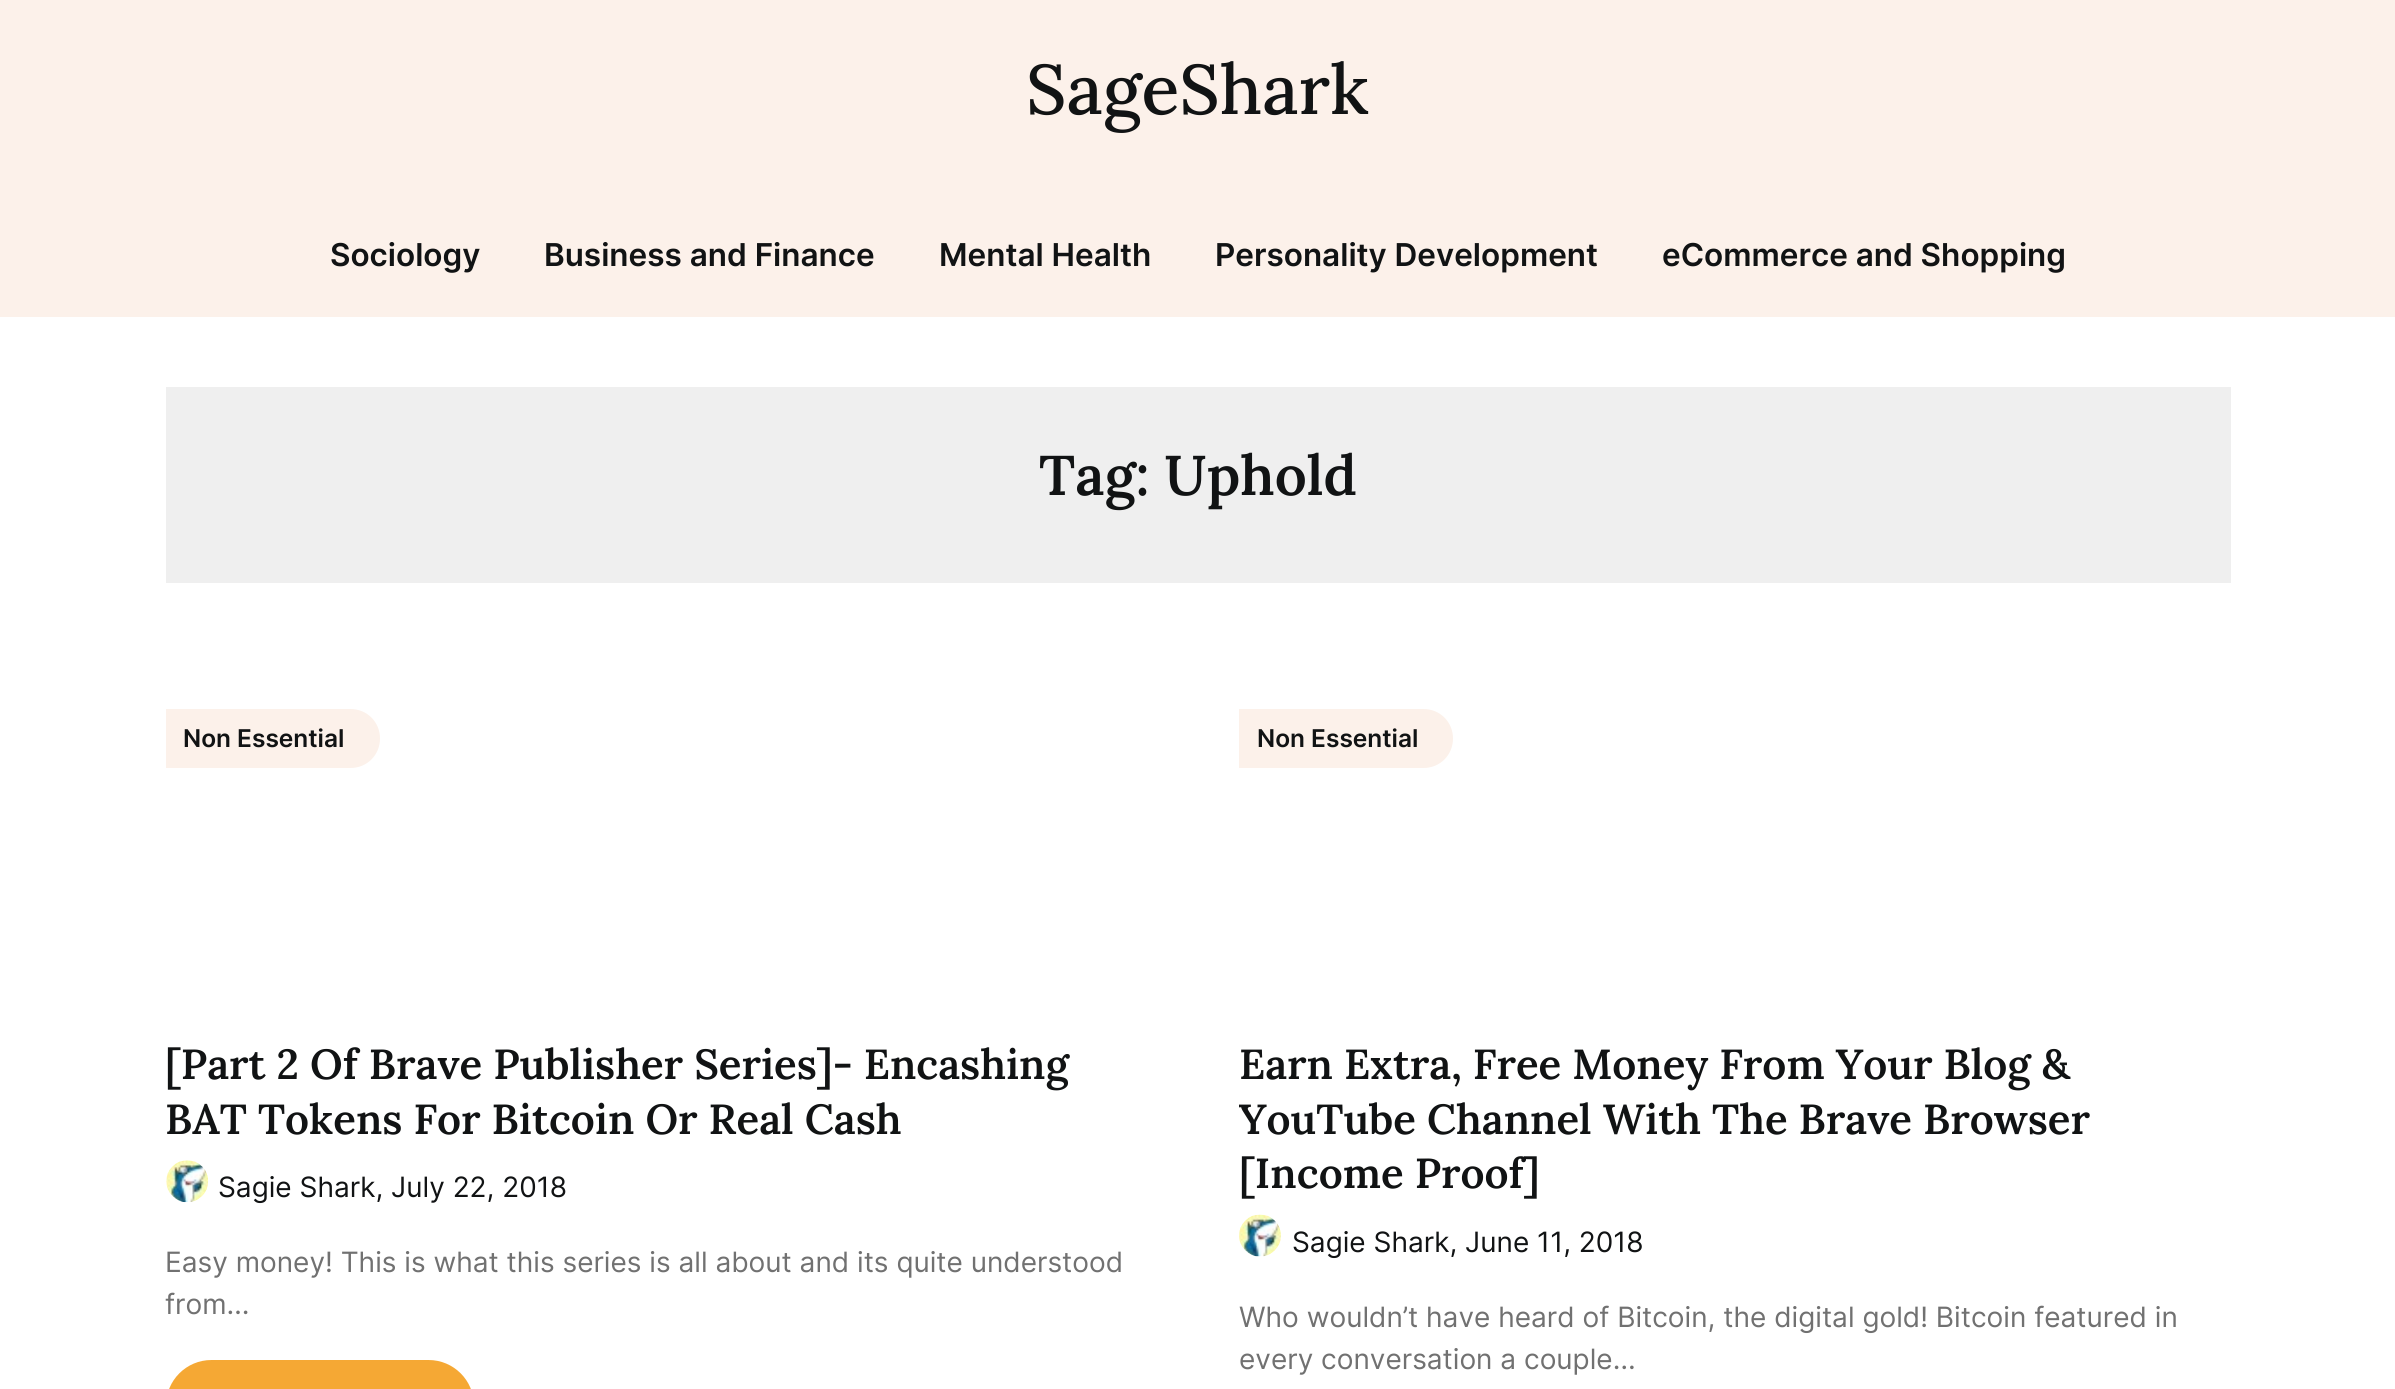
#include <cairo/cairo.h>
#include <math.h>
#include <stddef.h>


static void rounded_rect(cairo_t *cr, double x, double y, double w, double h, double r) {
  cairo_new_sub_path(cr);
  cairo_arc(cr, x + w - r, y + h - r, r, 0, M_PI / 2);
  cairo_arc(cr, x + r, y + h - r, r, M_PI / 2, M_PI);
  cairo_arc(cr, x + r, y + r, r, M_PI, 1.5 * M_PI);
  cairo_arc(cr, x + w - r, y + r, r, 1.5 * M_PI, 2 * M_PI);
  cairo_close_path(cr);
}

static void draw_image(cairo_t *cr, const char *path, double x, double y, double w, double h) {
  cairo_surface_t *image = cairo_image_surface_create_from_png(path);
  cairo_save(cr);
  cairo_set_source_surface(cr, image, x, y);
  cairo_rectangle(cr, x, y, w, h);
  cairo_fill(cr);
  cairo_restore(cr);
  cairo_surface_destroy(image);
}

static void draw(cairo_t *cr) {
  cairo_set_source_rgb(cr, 1, 1, 1);
  cairo_paint(cr);
  cairo_set_source_rgb(cr, 252 / 255.0, 241 / 255.0, 234 / 255.0);
  cairo_rectangle(cr, 0, 0, 2395, 317);
  cairo_fill(cr);
  cairo_set_source_rgb(cr, 239 / 255.0, 239 / 255.0, 239 / 255.0);
  cairo_rectangle(cr, 166, 387, 2065, 196);
  cairo_fill(cr);
  cairo_set_source_rgb(cr, 252 / 255.0, 241 / 255.0, 234 / 255.0);
  cairo_new_path(cr);
  cairo_move_to(cr, 166, 709);
  cairo_line_to(cr, 350.5, 709);
  cairo_curve_to(cr, 367, 709, 380, 722, 380, 738.5);
  cairo_curve_to(cr, 380, 755, 367, 768, 350.5, 768);
  cairo_line_to(cr, 166, 768);
  cairo_close_path(cr);
  cairo_fill(cr);
  draw_image(cr, "images/1.png", 166, 1160, 43, 43);
  cairo_set_source_rgb(cr, 245 / 255.0, 168 / 255.0, 52 / 255.0);
  rounded_rect(cr, 166, 1360, 308, 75, 45.5);
  cairo_fill(cr);
  cairo_set_source_rgb(cr, 252 / 255.0, 241 / 255.0, 234 / 255.0);
  cairo_new_path(cr);
  cairo_move_to(cr, 1239, 709);
  cairo_line_to(cr, 1423.5, 709);
  cairo_curve_to(cr, 1440, 709, 1453, 722, 1453, 738.5);
  cairo_curve_to(cr, 1453, 755, 1440, 768, 1423.5, 768);
  cairo_line_to(cr, 1239, 768);
  cairo_close_path(cr);
  cairo_fill(cr);
  draw_image(cr, "images/2.png", 1239, 1214, 42, 43);
  cairo_select_font_face(cr, "Lora Medium", CAIRO_FONT_SLANT_NORMAL, CAIRO_FONT_WEIGHT_NORMAL);
  cairo_set_font_size(cr, 70);
  cairo_set_source_rgb(cr, 17 / 255.0, 19 / 255.0, 20 / 255.0);
  cairo_move_to(cr, 1026, 114);
  cairo_show_text(cr, "SageShark");
  cairo_select_font_face(cr, "Inter SemiBold", CAIRO_FONT_SLANT_NORMAL, CAIRO_FONT_WEIGHT_NORMAL);
  cairo_set_font_size(cr, 31.5);
  cairo_move_to(cr, 330, 266);
  cairo_show_text(cr, "Sociology");
  cairo_move_to(cr, 544, 266);
  cairo_show_text(cr, "Business and Finance");
  cairo_move_to(cr, 939, 266);
  cairo_show_text(cr, "Mental Health");
  cairo_move_to(cr, 1215, 266);
  cairo_show_text(cr, "Personality Development");
  cairo_move_to(cr, 1662, 266);
  cairo_show_text(cr, "eCommerce and Shopping");
  cairo_select_font_face(cr, "Lora SemiBold", CAIRO_FONT_SLANT_NORMAL, CAIRO_FONT_WEIGHT_NORMAL);
  cairo_set_font_size(cr, 56);
  cairo_move_to(cr, 1039, 495);
  cairo_show_text(cr, "Tag: Uphold");
  cairo_select_font_face(cr, "Inter SemiBold", CAIRO_FONT_SLANT_NORMAL, CAIRO_FONT_WEIGHT_NORMAL);
  cairo_set_font_size(cr, 24.5);
  cairo_move_to(cr, 183, 747);
  cairo_show_text(cr, "Non Essential");
  cairo_select_font_face(cr, "Lora SemiBold", CAIRO_FONT_SLANT_NORMAL, CAIRO_FONT_WEIGHT_NORMAL);
  cairo_set_font_size(cr, 42);
  cairo_move_to(cr, 165, 1079);
  cairo_show_text(cr, "[Part 2 Of Brave Publisher Series]- Encashing");
  cairo_move_to(cr, 165, 1134);
  cairo_show_text(cr, "BAT Tokens For Bitcoin Or Real Cash");
  cairo_select_font_face(cr, "Inter", CAIRO_FONT_SLANT_NORMAL, CAIRO_FONT_WEIGHT_NORMAL);
  cairo_set_font_size(cr, 28);
  cairo_move_to(cr, 218, 1197);
  cairo_show_text(cr, "Sagie Shark, July 22, 2018");
  cairo_set_source_rgb(cr, 113 / 255.0, 113 / 255.0, 113 / 255.0);
  cairo_move_to(cr, 165, 1272);
  cairo_show_text(cr, "Easy money! This is what this series is all about and its quite understood");
  cairo_move_to(cr, 165, 1314);
  cairo_show_text(cr, "from…");
  cairo_select_font_face(cr, "Inter SemiBold", CAIRO_FONT_SLANT_NORMAL, CAIRO_FONT_WEIGHT_NORMAL);
  cairo_set_font_size(cr, 24.5);
  cairo_set_source_rgb(cr, 17 / 255.0, 19 / 255.0, 20 / 255.0);
  cairo_move_to(cr, 1257, 747);
  cairo_show_text(cr, "Non Essential");
  cairo_select_font_face(cr, "Lora SemiBold", CAIRO_FONT_SLANT_NORMAL, CAIRO_FONT_WEIGHT_NORMAL);
  cairo_set_font_size(cr, 42);
  cairo_move_to(cr, 1239, 1079);
  cairo_show_text(cr, "Earn Extra, Free Money From Your Blog &");
  cairo_move_to(cr, 1239, 1134);
  cairo_show_text(cr, "YouTube Channel With The Brave Browser");
  cairo_move_to(cr, 1239, 1188);
  cairo_show_text(cr, "[Income Proof]");
  cairo_select_font_face(cr, "Inter", CAIRO_FONT_SLANT_NORMAL, CAIRO_FONT_WEIGHT_NORMAL);
  cairo_set_font_size(cr, 28);
  cairo_move_to(cr, 1292, 1252);
  cairo_show_text(cr, "Sagie Shark, June 11, 2018");
  cairo_set_source_rgb(cr, 113 / 255.0, 113 / 255.0, 113 / 255.0);
  cairo_move_to(cr, 1239, 1327);
  cairo_show_text(cr, "Who wouldn’t have heard of Bitcoin, the digital gold! Bitcoin featured in");
  cairo_move_to(cr, 1239, 1369);
  cairo_show_text(cr, "every conversation a couple…");
}

int main(void) {
  cairo_surface_t *surface = cairo_image_surface_create(CAIRO_FORMAT_RGB24, 2395, 1389);
  cairo_t *cr = cairo_create(surface);
  cairo_font_options_t *options = cairo_font_options_create();
  cairo_font_options_set_hint_metrics(options, CAIRO_HINT_METRICS_OFF);
  cairo_font_options_set_hint_style(options, CAIRO_HINT_STYLE_NONE);
  cairo_set_font_options(cr, options);
  cairo_set_miter_limit(cr, 4);
  draw(cr);
  cairo_surface_write_to_png(surface, "out.png");
  cairo_font_options_destroy(options);
  cairo_destroy(cr);
  cairo_surface_destroy(surface);
  return 0;
}
